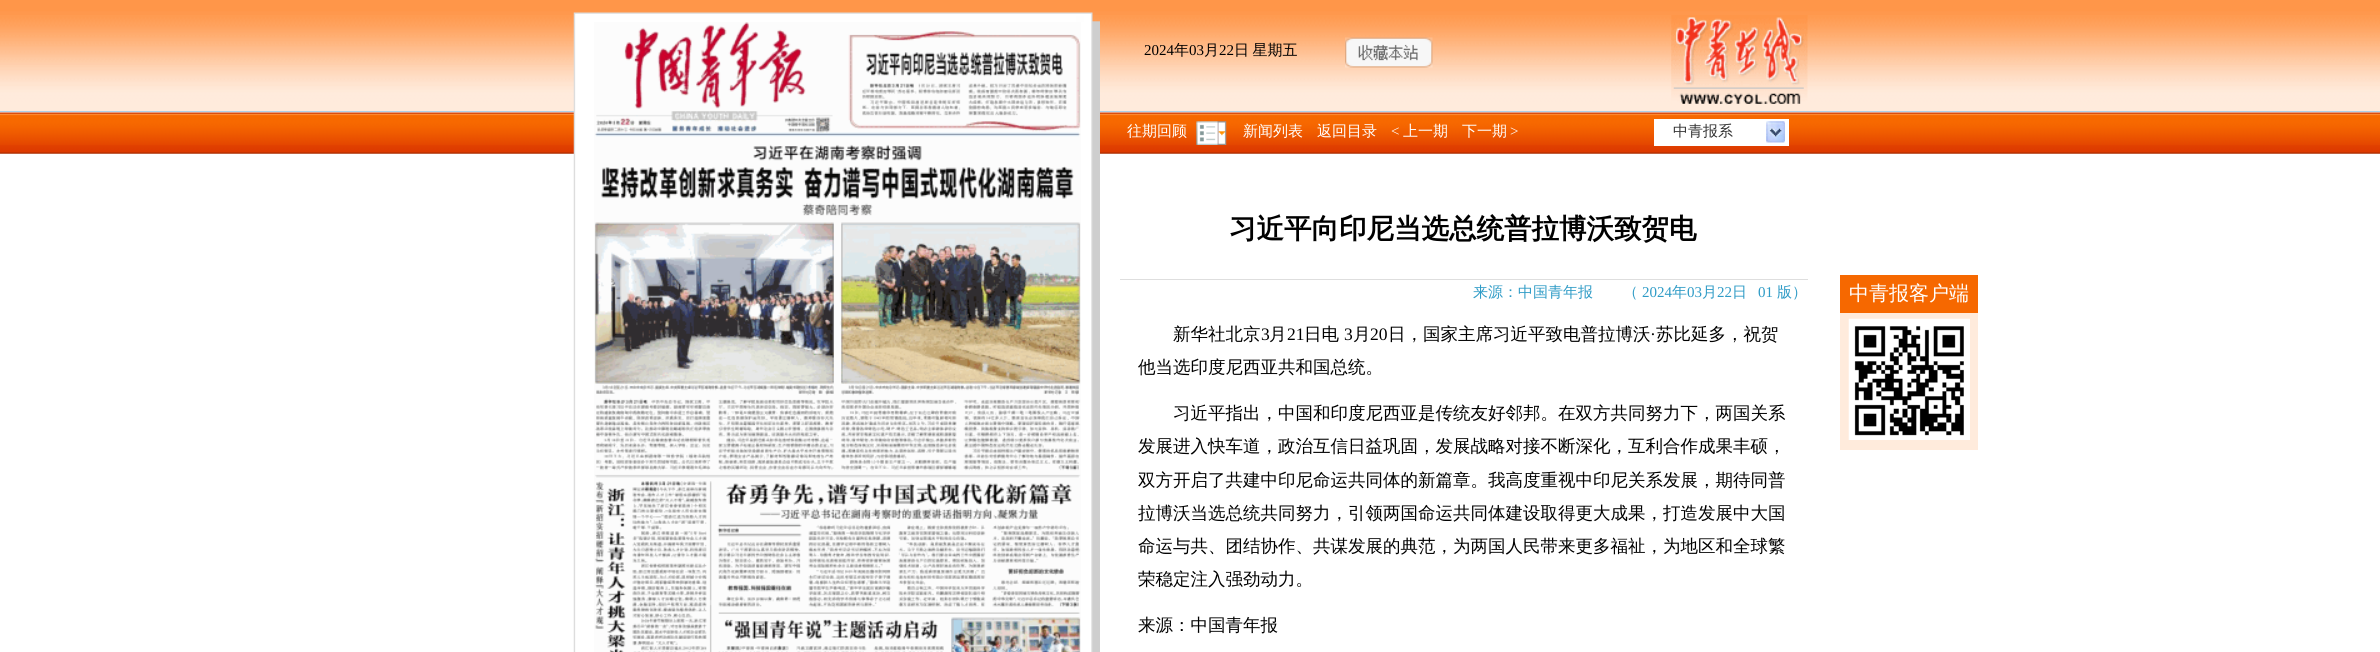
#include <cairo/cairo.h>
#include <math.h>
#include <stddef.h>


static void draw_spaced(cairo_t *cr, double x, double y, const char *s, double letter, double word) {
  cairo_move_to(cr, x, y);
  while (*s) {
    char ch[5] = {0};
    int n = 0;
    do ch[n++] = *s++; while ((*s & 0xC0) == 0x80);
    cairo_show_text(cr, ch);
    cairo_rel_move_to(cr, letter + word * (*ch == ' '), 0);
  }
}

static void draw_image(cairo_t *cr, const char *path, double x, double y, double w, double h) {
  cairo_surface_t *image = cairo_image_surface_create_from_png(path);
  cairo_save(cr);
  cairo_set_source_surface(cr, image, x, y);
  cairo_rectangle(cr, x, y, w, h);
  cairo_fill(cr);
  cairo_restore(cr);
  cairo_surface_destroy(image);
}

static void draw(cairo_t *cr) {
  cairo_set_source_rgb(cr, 1, 1, 1);
  cairo_paint(cr);
  draw_image(cr, "images/1.png", 0, 0, 2380, 111);
  cairo_set_source_rgb(cr, 172 / 255.0, 208 / 255.0, 234 / 255.0);
  cairo_rectangle(cr, 0, 111, 2380, 1);
  cairo_fill(cr);
  draw_image(cr, "images/8.png", 0, 112, 2380, 42);
  draw_image(cr, "images/2.png", 573, 12, 527, 640);
  draw_image(cr, "images/3.png", 594, 22, 487, 630);
  draw_image(cr, "images/4.png", 1345, 37, 88, 31);
  draw_image(cr, "images/5.png", 1671, 15, 137, 90);
  draw_image(cr, "images/6.png", 1196, 121, 31, 24);
  cairo_set_source_rgb(cr, 1, 1, 1);
  cairo_rectangle(cr, 1654, 119, 135, 27);
  cairo_fill(cr);
  draw_image(cr, "images/7.png", 1766, 121, 19, 22);
  cairo_set_source_rgb(cr, 222 / 255.0, 222 / 255.0, 222 / 255.0);
  cairo_rectangle(cr, 1120, 279, 688, 1);
  cairo_fill(cr);
  cairo_set_source_rgb(cr, 1, 235 / 255.0, 220 / 255.0);
  cairo_rectangle(cr, 1840, 313, 138, 137);
  cairo_fill(cr);
  cairo_set_source_rgb(cr, 246 / 255.0, 104 / 255.0, 0);
  cairo_rectangle(cr, 1840, 275, 138, 38);
  cairo_fill(cr);
  draw_image(cr, "images/9.png", 1848, 318, 122, 122);
  cairo_select_font_face(cr, "Liberation Serif", CAIRO_FONT_SLANT_NORMAL, CAIRO_FONT_WEIGHT_NORMAL);
  cairo_set_font_size(cr, 15);
  cairo_set_source_rgb(cr, 0, 0, 0);
  cairo_move_to(cr, 1144, 55);
  cairo_show_text(cr, "2024");
  cairo_select_font_face(cr, "WenQuanYi Zen Hei Medium", CAIRO_FONT_SLANT_NORMAL, CAIRO_FONT_WEIGHT_NORMAL);
  cairo_move_to(cr, 1174, 55);
  cairo_show_text(cr, "年");
  cairo_select_font_face(cr, "Liberation Serif", CAIRO_FONT_SLANT_NORMAL, CAIRO_FONT_WEIGHT_NORMAL);
  cairo_move_to(cr, 1189, 55);
  cairo_show_text(cr, "03");
  cairo_select_font_face(cr, "WenQuanYi Zen Hei Medium", CAIRO_FONT_SLANT_NORMAL, CAIRO_FONT_WEIGHT_NORMAL);
  cairo_move_to(cr, 1204, 55);
  cairo_show_text(cr, "月");
  cairo_select_font_face(cr, "Liberation Serif", CAIRO_FONT_SLANT_NORMAL, CAIRO_FONT_WEIGHT_NORMAL);
  cairo_move_to(cr, 1219, 55);
  cairo_show_text(cr, "22");
  cairo_select_font_face(cr, "WenQuanYi Zen Hei Medium", CAIRO_FONT_SLANT_NORMAL, CAIRO_FONT_WEIGHT_NORMAL);
  draw_spaced(cr, 1234, 55, "日 星期五", 0, -1);
  cairo_set_source_rgb(cr, 1, 1, 1);
  cairo_move_to(cr, 1127, 136);
  cairo_show_text(cr, "往期回顾");
  cairo_move_to(cr, 1243, 136);
  cairo_show_text(cr, "新闻列表");
  cairo_move_to(cr, 1317, 136);
  cairo_show_text(cr, "返回目录");
  cairo_select_font_face(cr, "Liberation Serif", CAIRO_FONT_SLANT_NORMAL, CAIRO_FONT_WEIGHT_NORMAL);
  cairo_move_to(cr, 1391, 136);
  cairo_show_text(cr, "<");
  cairo_select_font_face(cr, "WenQuanYi Zen Hei Medium", CAIRO_FONT_SLANT_NORMAL, CAIRO_FONT_WEIGHT_NORMAL);
  cairo_move_to(cr, 1403, 136);
  cairo_show_text(cr, "上一期");
  cairo_move_to(cr, 1462, 136);
  cairo_show_text(cr, "下一期");
  cairo_select_font_face(cr, "Liberation Serif", CAIRO_FONT_SLANT_NORMAL, CAIRO_FONT_WEIGHT_NORMAL);
  cairo_move_to(cr, 1510, 136);
  cairo_show_text(cr, ">");
  cairo_select_font_face(cr, "WenQuanYi Zen Hei Medium", CAIRO_FONT_SLANT_NORMAL, CAIRO_FONT_WEIGHT_NORMAL);
  cairo_set_source_rgb(cr, 51 / 255.0, 51 / 255.0, 51 / 255.0);
  cairo_move_to(cr, 1673, 136);
  cairo_show_text(cr, "中青报系");
  cairo_select_font_face(cr, "WenQuanYi Zen Hei", CAIRO_FONT_SLANT_NORMAL, CAIRO_FONT_WEIGHT_BOLD);
  cairo_set_font_size(cr, 27.5);
  cairo_set_source_rgb(cr, 0, 0, 0);
  cairo_move_to(cr, 1229, 238);
  cairo_show_text(cr, "习近平向印尼当选总统普拉博沃致贺电");
  cairo_select_font_face(cr, "WenQuanYi Zen Hei Medium", CAIRO_FONT_SLANT_NORMAL, CAIRO_FONT_WEIGHT_NORMAL);
  cairo_set_font_size(cr, 15);
  cairo_set_source_rgb(cr, 46 / 255.0, 155 / 255.0, 198 / 255.0);
  cairo_move_to(cr, 1473, 297);
  cairo_show_text(cr, "来源：中国青年报　　（");
  cairo_select_font_face(cr, "Liberation Serif", CAIRO_FONT_SLANT_NORMAL, CAIRO_FONT_WEIGHT_NORMAL);
  cairo_move_to(cr, 1642, 297);
  cairo_show_text(cr, "2024");
  cairo_select_font_face(cr, "WenQuanYi Zen Hei Medium", CAIRO_FONT_SLANT_NORMAL, CAIRO_FONT_WEIGHT_NORMAL);
  cairo_move_to(cr, 1672, 297);
  cairo_show_text(cr, "年");
  cairo_select_font_face(cr, "Liberation Serif", CAIRO_FONT_SLANT_NORMAL, CAIRO_FONT_WEIGHT_NORMAL);
  cairo_move_to(cr, 1687, 297);
  cairo_show_text(cr, "03");
  cairo_select_font_face(cr, "WenQuanYi Zen Hei Medium", CAIRO_FONT_SLANT_NORMAL, CAIRO_FONT_WEIGHT_NORMAL);
  cairo_move_to(cr, 1702, 297);
  cairo_show_text(cr, "月");
  cairo_select_font_face(cr, "Liberation Serif", CAIRO_FONT_SLANT_NORMAL, CAIRO_FONT_WEIGHT_NORMAL);
  cairo_move_to(cr, 1717, 297);
  cairo_show_text(cr, "22");
  cairo_select_font_face(cr, "WenQuanYi Zen Hei Medium", CAIRO_FONT_SLANT_NORMAL, CAIRO_FONT_WEIGHT_NORMAL);
  cairo_move_to(cr, 1732, 297);
  cairo_show_text(cr, "日");
  cairo_select_font_face(cr, "Liberation Serif", CAIRO_FONT_SLANT_NORMAL, CAIRO_FONT_WEIGHT_NORMAL);
  cairo_move_to(cr, 1758, 297);
  cairo_show_text(cr, "01");
  cairo_select_font_face(cr, "WenQuanYi Zen Hei Medium", CAIRO_FONT_SLANT_NORMAL, CAIRO_FONT_WEIGHT_NORMAL);
  cairo_move_to(cr, 1777, 297);
  cairo_show_text(cr, "版）");
  cairo_set_font_size(cr, 17.5);
  cairo_set_source_rgb(cr, 0, 0, 0);
  cairo_move_to(cr, 1173, 340);
  cairo_show_text(cr, "新华社北京");
  cairo_select_font_face(cr, "Liberation Serif", CAIRO_FONT_SLANT_NORMAL, CAIRO_FONT_WEIGHT_NORMAL);
  cairo_move_to(cr, 1261, 340);
  cairo_show_text(cr, "3");
  cairo_select_font_face(cr, "WenQuanYi Zen Hei Medium", CAIRO_FONT_SLANT_NORMAL, CAIRO_FONT_WEIGHT_NORMAL);
  cairo_move_to(cr, 1269, 340);
  cairo_show_text(cr, "月");
  cairo_select_font_face(cr, "Liberation Serif", CAIRO_FONT_SLANT_NORMAL, CAIRO_FONT_WEIGHT_NORMAL);
  cairo_move_to(cr, 1287, 340);
  cairo_show_text(cr, "21");
  cairo_select_font_face(cr, "WenQuanYi Zen Hei Medium", CAIRO_FONT_SLANT_NORMAL, CAIRO_FONT_WEIGHT_NORMAL);
  cairo_move_to(cr, 1304, 340);
  cairo_show_text(cr, "日电");
  cairo_select_font_face(cr, "Liberation Serif", CAIRO_FONT_SLANT_NORMAL, CAIRO_FONT_WEIGHT_NORMAL);
  cairo_move_to(cr, 1344, 340);
  cairo_show_text(cr, "3");
  cairo_select_font_face(cr, "WenQuanYi Zen Hei Medium", CAIRO_FONT_SLANT_NORMAL, CAIRO_FONT_WEIGHT_NORMAL);
  cairo_move_to(cr, 1353, 340);
  cairo_show_text(cr, "月");
  cairo_select_font_face(cr, "Liberation Serif", CAIRO_FONT_SLANT_NORMAL, CAIRO_FONT_WEIGHT_NORMAL);
  cairo_move_to(cr, 1370, 340);
  cairo_show_text(cr, "20");
  cairo_select_font_face(cr, "WenQuanYi Zen Hei Medium", CAIRO_FONT_SLANT_NORMAL, CAIRO_FONT_WEIGHT_NORMAL);
  cairo_move_to(cr, 1388, 340);
  cairo_show_text(cr, "日，国家主席习近平致电普拉博沃");
  cairo_select_font_face(cr, "Liberation Serif", CAIRO_FONT_SLANT_NORMAL, CAIRO_FONT_WEIGHT_NORMAL);
  cairo_move_to(cr, 1650, 340);
  cairo_show_text(cr, "·");
  cairo_select_font_face(cr, "WenQuanYi Zen Hei Medium", CAIRO_FONT_SLANT_NORMAL, CAIRO_FONT_WEIGHT_NORMAL);
  cairo_move_to(cr, 1656, 340);
  cairo_show_text(cr, "苏比延多，祝贺");
  cairo_move_to(cr, 1138, 373);
  cairo_show_text(cr, "他当选印度尼西亚共和国总统。");
  cairo_move_to(cr, 1173, 419);
  cairo_show_text(cr, "习近平指出，中国和印度尼西亚是传统友好邻邦。在双方共同努力下，两国关系");
  cairo_move_to(cr, 1138, 452);
  cairo_show_text(cr, "发展进入快车道，政治互信日益巩固，发展战略对接不断深化，互利合作成果丰硕，");
  cairo_move_to(cr, 1138, 486);
  cairo_show_text(cr, "双方开启了共建中印尼命运共同体的新篇章。我高度重视中印尼关系发展，期待同普");
  cairo_move_to(cr, 1138, 519);
  cairo_show_text(cr, "拉博沃当选总统共同努力，引领两国命运共同体建设取得更大成果，打造发展中大国");
  cairo_move_to(cr, 1138, 552);
  cairo_show_text(cr, "命运与共、团结协作、共谋发展的典范，为两国人民带来更多福祉，为地区和全球繁");
  cairo_move_to(cr, 1138, 585);
  cairo_show_text(cr, "荣稳定注入强劲动力。");
  cairo_move_to(cr, 1138, 631);
  cairo_show_text(cr, "来源：中国青年报");
  cairo_set_font_size(cr, 20);
  cairo_set_source_rgb(cr, 1, 1, 1);
  cairo_move_to(cr, 1849, 300);
  cairo_show_text(cr, "中青报客户端");
}

int main(void) {
  cairo_surface_t *surface = cairo_image_surface_create(CAIRO_FORMAT_RGB24, 2380, 652);
  cairo_t *cr = cairo_create(surface);
  cairo_font_options_t *options = cairo_font_options_create();
  cairo_font_options_set_hint_metrics(options, CAIRO_HINT_METRICS_OFF);
  cairo_font_options_set_hint_style(options, CAIRO_HINT_STYLE_NONE);
  cairo_set_font_options(cr, options);
  cairo_set_miter_limit(cr, 4);
  draw(cr);
  cairo_surface_write_to_png(surface, "out.png");
  cairo_font_options_destroy(options);
  cairo_destroy(cr);
  cairo_surface_destroy(surface);
  return 0;
}
